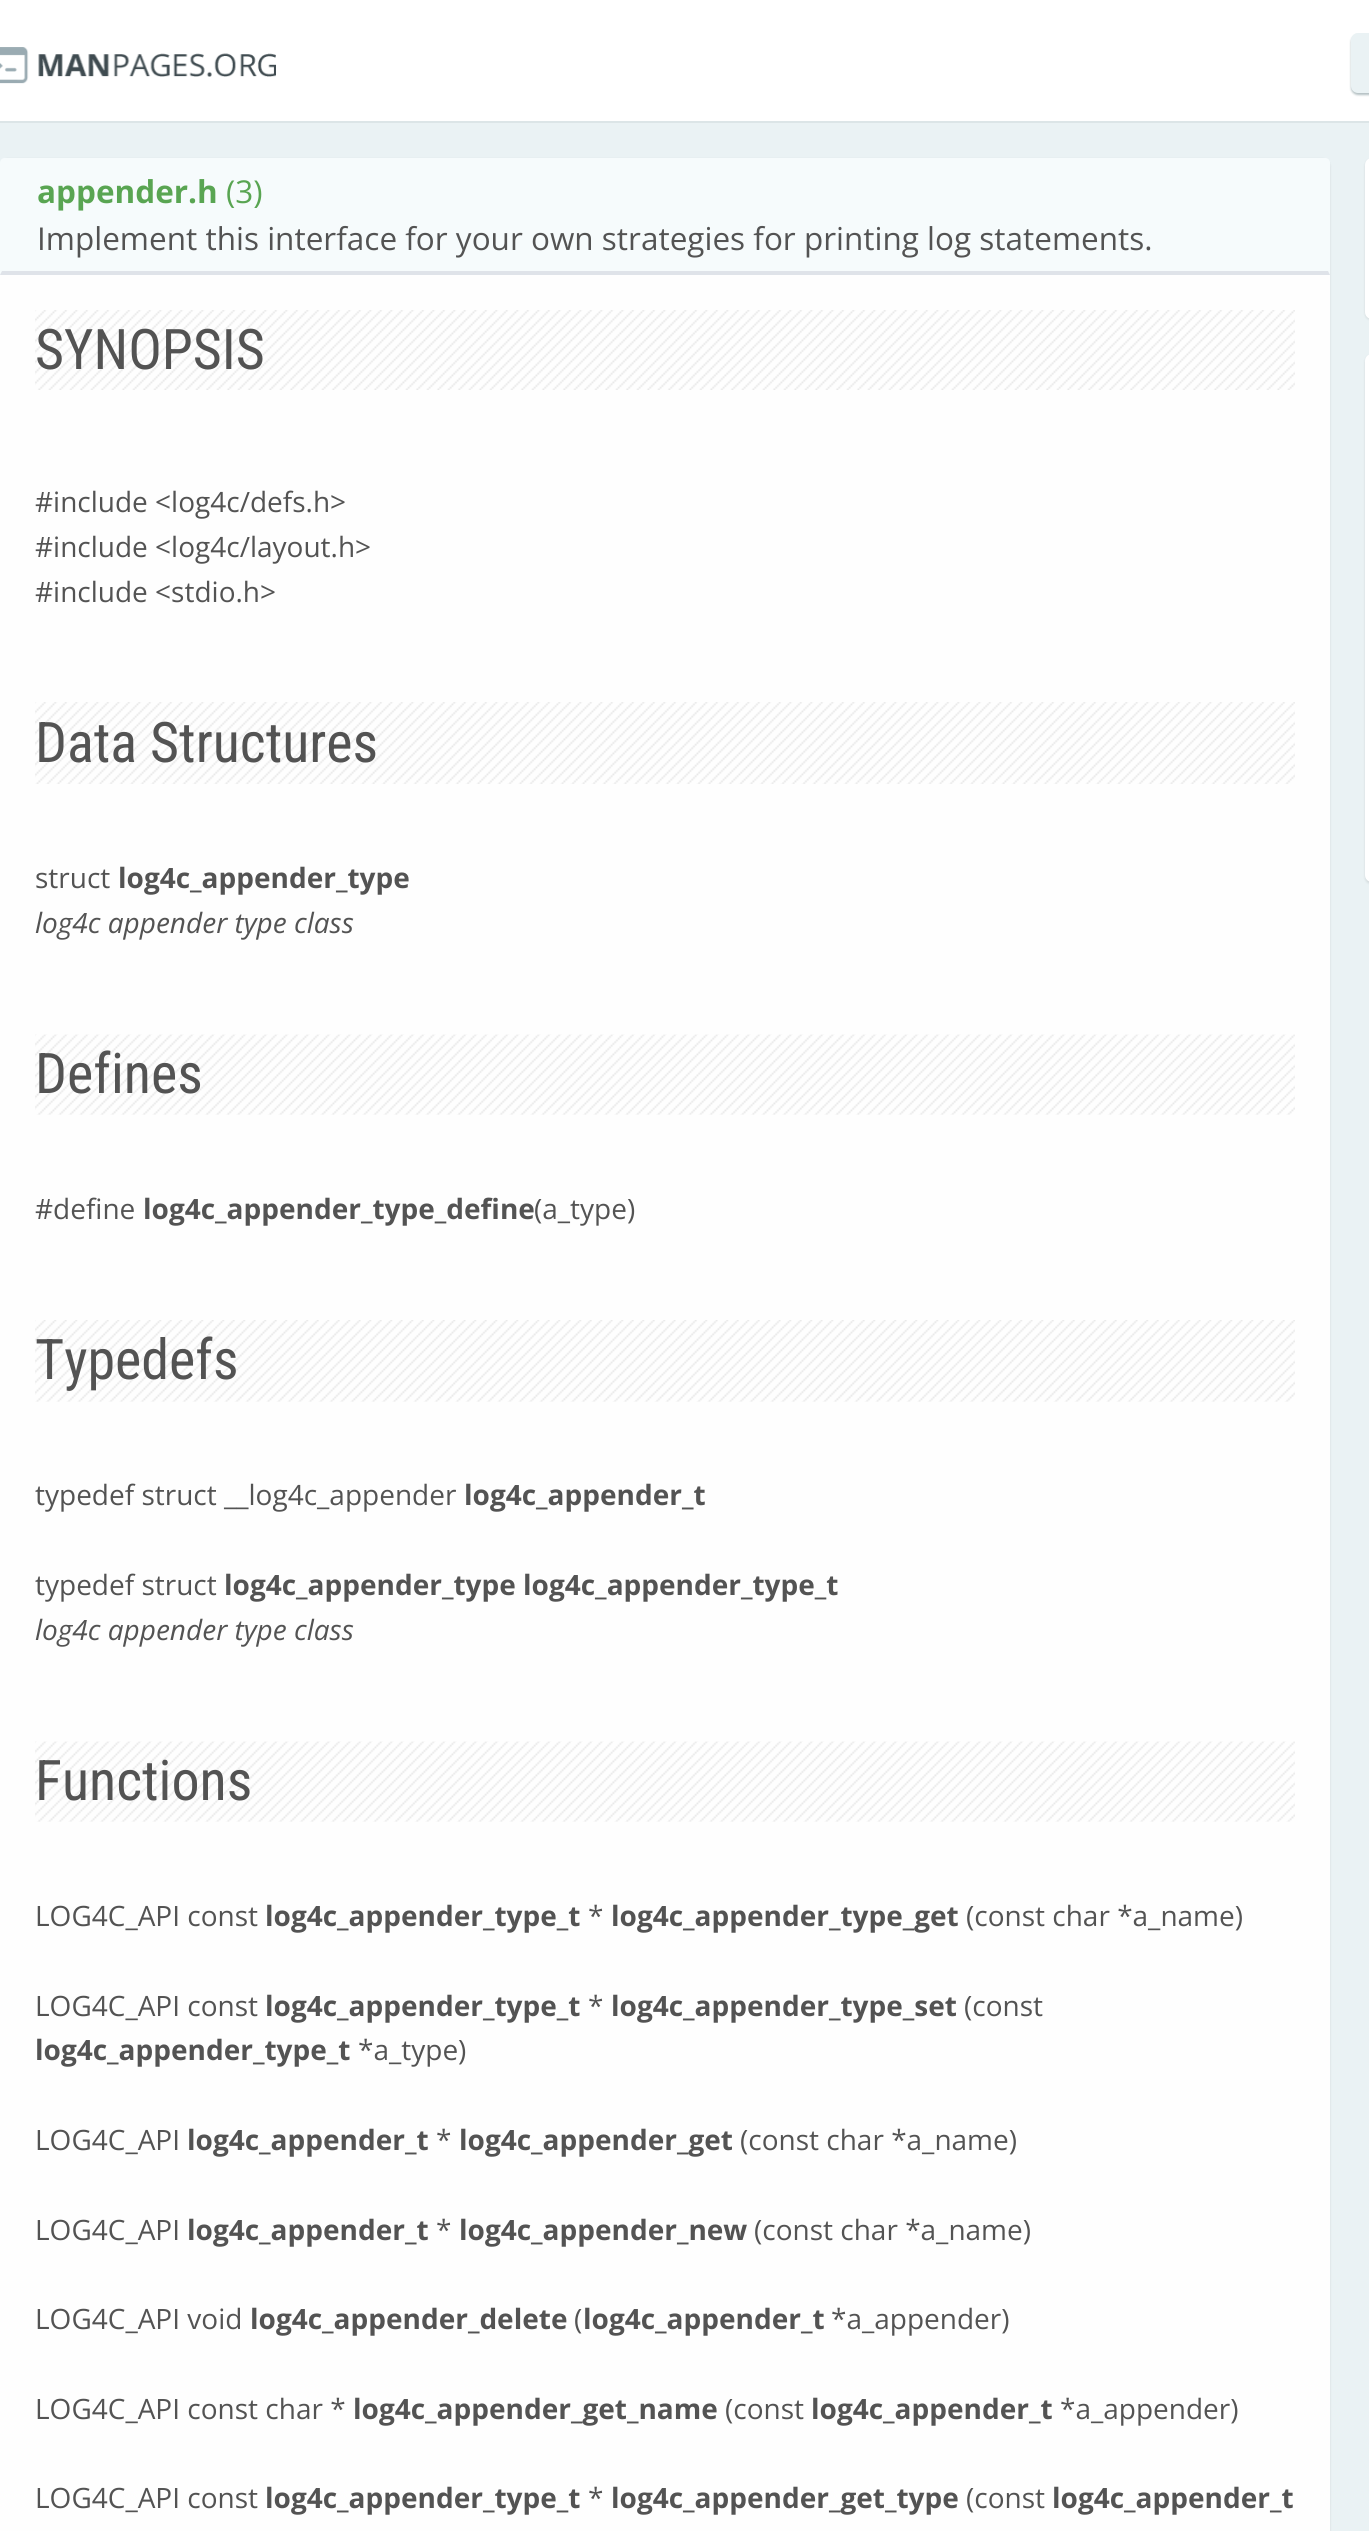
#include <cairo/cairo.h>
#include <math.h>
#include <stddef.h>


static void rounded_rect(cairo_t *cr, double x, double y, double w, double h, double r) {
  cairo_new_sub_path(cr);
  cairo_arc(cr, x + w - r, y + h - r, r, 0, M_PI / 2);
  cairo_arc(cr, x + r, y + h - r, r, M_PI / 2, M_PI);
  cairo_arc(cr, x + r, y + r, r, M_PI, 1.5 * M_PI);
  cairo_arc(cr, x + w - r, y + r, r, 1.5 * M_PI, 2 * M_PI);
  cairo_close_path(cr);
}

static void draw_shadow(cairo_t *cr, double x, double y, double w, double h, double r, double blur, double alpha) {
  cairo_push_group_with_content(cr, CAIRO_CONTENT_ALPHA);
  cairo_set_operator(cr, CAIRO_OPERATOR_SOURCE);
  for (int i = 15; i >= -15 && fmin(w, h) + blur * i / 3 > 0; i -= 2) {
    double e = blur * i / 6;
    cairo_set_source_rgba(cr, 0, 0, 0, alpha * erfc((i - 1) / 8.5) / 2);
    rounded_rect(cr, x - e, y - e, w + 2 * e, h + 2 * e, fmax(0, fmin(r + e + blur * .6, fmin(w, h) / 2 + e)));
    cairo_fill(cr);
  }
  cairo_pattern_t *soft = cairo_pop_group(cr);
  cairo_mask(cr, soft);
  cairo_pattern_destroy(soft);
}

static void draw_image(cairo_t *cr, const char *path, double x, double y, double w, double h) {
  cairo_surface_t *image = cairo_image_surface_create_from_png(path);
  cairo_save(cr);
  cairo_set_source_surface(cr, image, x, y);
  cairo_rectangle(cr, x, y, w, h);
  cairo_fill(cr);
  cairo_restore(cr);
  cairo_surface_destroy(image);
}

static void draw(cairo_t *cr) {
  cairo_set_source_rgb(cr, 234 / 255.0, 242 / 255.0, 244 / 255.0);
  cairo_paint(cr);
  cairo_set_source_rgb(cr, 1, 1, 1);
  cairo_rectangle(cr, 0, 0, 1369, 121);
  cairo_fill(cr);
  cairo_set_source_rgb(cr, 220 / 255.0, 229 / 255.0, 231 / 255.0);
  cairo_rectangle(cr, 0, 121, 1369, 2);
  cairo_fill(cr);
  draw_image(cr, "images/1.png", 0, 47, 276, 37);
  cairo_set_source_rgb(cr, 6 / 255.0, 47 / 255.0, 55 / 255.0);
  draw_shadow(cr, 1351, 35, 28, 60, 7, 1, 0.3);
  cairo_set_source_rgb(cr, 234 / 255.0, 242 / 255.0, 244 / 255.0);
  rounded_rect(cr, 1351, 33, 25, 60, 7);
  cairo_fill(cr);
  cairo_set_source_rgb(cr, 0, 0, 0);
  draw_shadow(cr, 0, 159, 1330, 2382, 7, 1, 0.1);
  cairo_set_source_rgb(cr, 254 / 255.0, 254 / 255.0, 254 / 255.0);
  cairo_new_path(cr);
  cairo_move_to(cr, 7, 158);
  cairo_line_to(cr, 1323, 158);
  cairo_curve_to(cr, 1327, 158, 1330, 161, 1330, 165);
  cairo_line_to(cr, 1330, 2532);
  cairo_line_to(cr, 0, 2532);
  cairo_line_to(cr, 0, 165);
  cairo_curve_to(cr, 0, 161, 3, 158, 7, 158);
  cairo_close_path(cr);
  cairo_fill(cr);
  cairo_set_source_rgb(cr, 246 / 255.0, 251 / 255.0, 252 / 255.0);
  cairo_new_path(cr);
  cairo_move_to(cr, 5, 158);
  cairo_line_to(cr, 1325, 158);
  cairo_curve_to(cr, 1328, 158, 1330, 160, 1330, 163);
  cairo_line_to(cr, 1330, 275);
  cairo_line_to(cr, 0, 275);
  cairo_line_to(cr, 0, 163);
  cairo_curve_to(cr, 0, 160, 2, 158, 5, 158);
  cairo_close_path(cr);
  cairo_fill(cr);
  cairo_set_source_rgb(cr, 223 / 255.0, 227 / 255.0, 233 / 255.0);
  cairo_new_path(cr);
  cairo_move_to(cr, 1330, 275);
  cairo_line_to(cr, 0, 275);
  cairo_line_to(cr, 2, 271);
  cairo_line_to(cr, 1328, 271);
  cairo_close_path(cr);
  cairo_fill(cr);
  draw_image(cr, "images/2.png", 35, 310, 1260, 80);
  draw_image(cr, "images/3.png", 35, 702, 1260, 82);
  draw_image(cr, "images/4.png", 35, 1034, 1260, 81);
  draw_image(cr, "images/5.png", 35, 1320, 1260, 82);
  draw_image(cr, "images/4.png", 35, 1741, 1260, 81);
  cairo_set_source_rgb(cr, 0, 0, 0);
  draw_shadow(cr, 1365, 159, 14, 161, 7, 1, 0.1);
  cairo_set_source_rgb(cr, 1, 1, 1);
  cairo_new_path(cr);
  cairo_move_to(cr, 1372, 158);
  cairo_line_to(cr, 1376, 158);
  cairo_line_to(cr, 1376, 319);
  cairo_line_to(cr, 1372, 319);
  cairo_curve_to(cr, 1368, 319, 1365, 316, 1365, 312);
  cairo_line_to(cr, 1365, 165);
  cairo_curve_to(cr, 1365, 161, 1368, 158, 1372, 158);
  cairo_close_path(cr);
  cairo_fill(cr);
  cairo_set_source_rgb(cr, 0, 0, 0);
  draw_shadow(cr, 1365, 355, 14, 529, 7, 1, 0.1);
  cairo_set_source_rgb(cr, 1, 1, 1);
  cairo_new_path(cr);
  cairo_move_to(cr, 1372, 354);
  cairo_line_to(cr, 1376, 354);
  cairo_line_to(cr, 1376, 882);
  cairo_line_to(cr, 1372, 882);
  cairo_curve_to(cr, 1368, 882, 1365, 879, 1365, 875);
  cairo_line_to(cr, 1365, 361);
  cairo_curve_to(cr, 1365, 357, 1368, 354, 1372, 354);
  cairo_close_path(cr);
  cairo_fill(cr);
  cairo_select_font_face(cr, "Open Sans", CAIRO_FONT_SLANT_NORMAL, CAIRO_FONT_WEIGHT_BOLD);
  cairo_set_font_size(cr, 31.5);
  cairo_set_source_rgb(cr, 89 / 255.0, 165 / 255.0, 82 / 255.0);
  cairo_move_to(cr, 37, 203);
  cairo_show_text(cr, "appender.h");
  cairo_select_font_face(cr, "Open Sans", CAIRO_FONT_SLANT_NORMAL, CAIRO_FONT_WEIGHT_NORMAL);
  cairo_move_to(cr, 226, 203);
  cairo_show_text(cr, "(3)");
  cairo_set_source_rgb(cr, 83 / 255.0, 83 / 255.0, 83 / 255.0);
  cairo_move_to(cr, 37, 250);
  cairo_show_text(cr, "Implement this interface for your own strategies for printing log statements.");
  cairo_select_font_face(cr, "Roboto Condensed", CAIRO_FONT_SLANT_NORMAL, CAIRO_FONT_WEIGHT_NORMAL);
  cairo_set_font_size(cr, 56);
  cairo_move_to(cr, 35, 369);
  cairo_show_text(cr, "SYNOPSIS");
  cairo_select_font_face(cr, "Open Sans", CAIRO_FONT_SLANT_NORMAL, CAIRO_FONT_WEIGHT_NORMAL);
  cairo_set_font_size(cr, 28);
  cairo_move_to(cr, 35, 512);
  cairo_show_text(cr, "#include <log4c/defs.h>");
  cairo_move_to(cr, 35, 557);
  cairo_show_text(cr, "#include <log4c/layout.h>");
  cairo_move_to(cr, 35, 602);
  cairo_show_text(cr, "#include <stdio.h>");
  cairo_select_font_face(cr, "Roboto Condensed", CAIRO_FONT_SLANT_NORMAL, CAIRO_FONT_WEIGHT_NORMAL);
  cairo_set_font_size(cr, 56);
  cairo_move_to(cr, 35, 762);
  cairo_show_text(cr, "Data Structures");
  cairo_select_font_face(cr, "Open Sans", CAIRO_FONT_SLANT_NORMAL, CAIRO_FONT_WEIGHT_NORMAL);
  cairo_set_font_size(cr, 28);
  cairo_move_to(cr, 35, 888);
  cairo_show_text(cr, "struct");
  cairo_select_font_face(cr, "Open Sans", CAIRO_FONT_SLANT_NORMAL, CAIRO_FONT_WEIGHT_BOLD);
  cairo_move_to(cr, 118, 888);
  cairo_show_text(cr, "log4c_appender_type");
  cairo_select_font_face(cr, "Open Sans", CAIRO_FONT_SLANT_ITALIC, CAIRO_FONT_WEIGHT_NORMAL);
  cairo_move_to(cr, 35, 933);
  cairo_show_text(cr, "log4c appender type class");
  cairo_select_font_face(cr, "Roboto Condensed", CAIRO_FONT_SLANT_NORMAL, CAIRO_FONT_WEIGHT_NORMAL);
  cairo_set_font_size(cr, 56);
  cairo_move_to(cr, 35, 1093);
  cairo_show_text(cr, "Defines");
  cairo_select_font_face(cr, "Open Sans", CAIRO_FONT_SLANT_NORMAL, CAIRO_FONT_WEIGHT_NORMAL);
  cairo_set_font_size(cr, 28);
  cairo_move_to(cr, 35, 1219);
  cairo_show_text(cr, "#define");
  cairo_select_font_face(cr, "Open Sans", CAIRO_FONT_SLANT_NORMAL, CAIRO_FONT_WEIGHT_BOLD);
  cairo_move_to(cr, 143, 1219);
  cairo_show_text(cr, "log4c_appender_type_define");
  cairo_select_font_face(cr, "Open Sans", CAIRO_FONT_SLANT_NORMAL, CAIRO_FONT_WEIGHT_NORMAL);
  cairo_move_to(cr, 534, 1219);
  cairo_show_text(cr, "(a_type)");
  cairo_select_font_face(cr, "Roboto Condensed", CAIRO_FONT_SLANT_NORMAL, CAIRO_FONT_WEIGHT_NORMAL);
  cairo_set_font_size(cr, 56);
  cairo_move_to(cr, 35, 1379);
  cairo_show_text(cr, "Typedefs");
  cairo_select_font_face(cr, "Open Sans", CAIRO_FONT_SLANT_NORMAL, CAIRO_FONT_WEIGHT_NORMAL);
  cairo_set_font_size(cr, 28);
  cairo_move_to(cr, 35, 1505);
  cairo_show_text(cr, "typedef struct __log4c_appender");
  cairo_select_font_face(cr, "Open Sans", CAIRO_FONT_SLANT_NORMAL, CAIRO_FONT_WEIGHT_BOLD);
  cairo_move_to(cr, 464, 1505);
  cairo_show_text(cr, "log4c_appender_t");
  cairo_select_font_face(cr, "Open Sans", CAIRO_FONT_SLANT_NORMAL, CAIRO_FONT_WEIGHT_NORMAL);
  cairo_move_to(cr, 35, 1595);
  cairo_show_text(cr, "typedef struct");
  cairo_select_font_face(cr, "Open Sans", CAIRO_FONT_SLANT_NORMAL, CAIRO_FONT_WEIGHT_BOLD);
  cairo_move_to(cr, 224, 1595);
  cairo_show_text(cr, "log4c_appender_type log4c_appender_type_t");
  cairo_select_font_face(cr, "Open Sans", CAIRO_FONT_SLANT_ITALIC, CAIRO_FONT_WEIGHT_NORMAL);
  cairo_move_to(cr, 35, 1640);
  cairo_show_text(cr, "log4c appender type class");
  cairo_select_font_face(cr, "Roboto Condensed", CAIRO_FONT_SLANT_NORMAL, CAIRO_FONT_WEIGHT_NORMAL);
  cairo_set_font_size(cr, 56);
  cairo_move_to(cr, 35, 1800);
  cairo_show_text(cr, "Functions");
  cairo_select_font_face(cr, "Open Sans", CAIRO_FONT_SLANT_NORMAL, CAIRO_FONT_WEIGHT_NORMAL);
  cairo_set_font_size(cr, 28);
  cairo_move_to(cr, 35, 1926);
  cairo_show_text(cr, "LOG4C_API const");
  cairo_select_font_face(cr, "Open Sans", CAIRO_FONT_SLANT_NORMAL, CAIRO_FONT_WEIGHT_BOLD);
  cairo_move_to(cr, 265, 1926);
  cairo_show_text(cr, "log4c_appender_type_t");
  cairo_select_font_face(cr, "Open Sans", CAIRO_FONT_SLANT_NORMAL, CAIRO_FONT_WEIGHT_NORMAL);
  cairo_move_to(cr, 588, 1926);
  cairo_show_text(cr, "*");
  cairo_select_font_face(cr, "Open Sans", CAIRO_FONT_SLANT_NORMAL, CAIRO_FONT_WEIGHT_BOLD);
  cairo_move_to(cr, 611, 1926);
  cairo_show_text(cr, "log4c_appender_type_get");
  cairo_select_font_face(cr, "Open Sans", CAIRO_FONT_SLANT_NORMAL, CAIRO_FONT_WEIGHT_NORMAL);
  cairo_move_to(cr, 966, 1926);
  cairo_show_text(cr, "(const char *a_name)");
  cairo_move_to(cr, 35, 2016);
  cairo_show_text(cr, "LOG4C_API const");
  cairo_select_font_face(cr, "Open Sans", CAIRO_FONT_SLANT_NORMAL, CAIRO_FONT_WEIGHT_BOLD);
  cairo_move_to(cr, 265, 2016);
  cairo_show_text(cr, "log4c_appender_type_t");
  cairo_select_font_face(cr, "Open Sans", CAIRO_FONT_SLANT_NORMAL, CAIRO_FONT_WEIGHT_NORMAL);
  cairo_move_to(cr, 588, 2016);
  cairo_show_text(cr, "*");
  cairo_select_font_face(cr, "Open Sans", CAIRO_FONT_SLANT_NORMAL, CAIRO_FONT_WEIGHT_BOLD);
  cairo_move_to(cr, 611, 2016);
  cairo_show_text(cr, "log4c_appender_type_set");
  cairo_select_font_face(cr, "Open Sans", CAIRO_FONT_SLANT_NORMAL, CAIRO_FONT_WEIGHT_NORMAL);
  cairo_move_to(cr, 964, 2016);
  cairo_show_text(cr, "(const");
  cairo_select_font_face(cr, "Open Sans", CAIRO_FONT_SLANT_NORMAL, CAIRO_FONT_WEIGHT_BOLD);
  cairo_move_to(cr, 35, 2060);
  cairo_show_text(cr, "log4c_appender_type_t");
  cairo_select_font_face(cr, "Open Sans", CAIRO_FONT_SLANT_NORMAL, CAIRO_FONT_WEIGHT_NORMAL);
  cairo_move_to(cr, 358, 2060);
  cairo_show_text(cr, "*a_type)");
  cairo_move_to(cr, 35, 2150);
  cairo_show_text(cr, "LOG4C_API");
  cairo_select_font_face(cr, "Open Sans", CAIRO_FONT_SLANT_NORMAL, CAIRO_FONT_WEIGHT_BOLD);
  cairo_move_to(cr, 187, 2150);
  cairo_show_text(cr, "log4c_appender_t");
  cairo_select_font_face(cr, "Open Sans", CAIRO_FONT_SLANT_NORMAL, CAIRO_FONT_WEIGHT_NORMAL);
  cairo_move_to(cr, 436, 2150);
  cairo_show_text(cr, "*");
  cairo_select_font_face(cr, "Open Sans", CAIRO_FONT_SLANT_NORMAL, CAIRO_FONT_WEIGHT_BOLD);
  cairo_move_to(cr, 459, 2150);
  cairo_show_text(cr, "log4c_appender_get");
  cairo_select_font_face(cr, "Open Sans", CAIRO_FONT_SLANT_NORMAL, CAIRO_FONT_WEIGHT_NORMAL);
  cairo_move_to(cr, 740, 2150);
  cairo_show_text(cr, "(const char *a_name)");
  cairo_move_to(cr, 35, 2240);
  cairo_show_text(cr, "LOG4C_API");
  cairo_select_font_face(cr, "Open Sans", CAIRO_FONT_SLANT_NORMAL, CAIRO_FONT_WEIGHT_BOLD);
  cairo_move_to(cr, 187, 2240);
  cairo_show_text(cr, "log4c_appender_t");
  cairo_select_font_face(cr, "Open Sans", CAIRO_FONT_SLANT_NORMAL, CAIRO_FONT_WEIGHT_NORMAL);
  cairo_move_to(cr, 436, 2240);
  cairo_show_text(cr, "*");
  cairo_select_font_face(cr, "Open Sans", CAIRO_FONT_SLANT_NORMAL, CAIRO_FONT_WEIGHT_BOLD);
  cairo_move_to(cr, 459, 2240);
  cairo_show_text(cr, "log4c_appender_new");
  cairo_select_font_face(cr, "Open Sans", CAIRO_FONT_SLANT_NORMAL, CAIRO_FONT_WEIGHT_NORMAL);
  cairo_move_to(cr, 754, 2240);
  cairo_show_text(cr, "(const char *a_name)");
  cairo_move_to(cr, 35, 2329);
  cairo_show_text(cr, "LOG4C_API void");
  cairo_select_font_face(cr, "Open Sans", CAIRO_FONT_SLANT_NORMAL, CAIRO_FONT_WEIGHT_BOLD);
  cairo_move_to(cr, 250, 2329);
  cairo_show_text(cr, "log4c_appender_delete");
  cairo_select_font_face(cr, "Open Sans", CAIRO_FONT_SLANT_NORMAL, CAIRO_FONT_WEIGHT_NORMAL);
  cairo_move_to(cr, 574, 2329);
  cairo_show_text(cr, "(");
  cairo_select_font_face(cr, "Open Sans", CAIRO_FONT_SLANT_NORMAL, CAIRO_FONT_WEIGHT_BOLD);
  cairo_move_to(cr, 583, 2329);
  cairo_show_text(cr, "log4c_appender_t");
  cairo_select_font_face(cr, "Open Sans", CAIRO_FONT_SLANT_NORMAL, CAIRO_FONT_WEIGHT_NORMAL);
  cairo_move_to(cr, 831, 2329);
  cairo_show_text(cr, "*a_appender)");
  cairo_move_to(cr, 35, 2419);
  cairo_show_text(cr, "LOG4C_API const char *");
  cairo_select_font_face(cr, "Open Sans", CAIRO_FONT_SLANT_NORMAL, CAIRO_FONT_WEIGHT_BOLD);
  cairo_move_to(cr, 353, 2419);
  cairo_show_text(cr, "log4c_appender_get_name");
  cairo_select_font_face(cr, "Open Sans", CAIRO_FONT_SLANT_NORMAL, CAIRO_FONT_WEIGHT_NORMAL);
  cairo_move_to(cr, 725, 2419);
  cairo_show_text(cr, "(const");
  cairo_select_font_face(cr, "Open Sans", CAIRO_FONT_SLANT_NORMAL, CAIRO_FONT_WEIGHT_BOLD);
  cairo_move_to(cr, 811, 2419);
  cairo_show_text(cr, "log4c_appender_t");
  cairo_select_font_face(cr, "Open Sans", CAIRO_FONT_SLANT_NORMAL, CAIRO_FONT_WEIGHT_NORMAL);
  cairo_move_to(cr, 1060, 2419);
  cairo_show_text(cr, "*a_appender)");
  cairo_move_to(cr, 35, 2508);
  cairo_show_text(cr, "LOG4C_API const");
  cairo_select_font_face(cr, "Open Sans", CAIRO_FONT_SLANT_NORMAL, CAIRO_FONT_WEIGHT_BOLD);
  cairo_move_to(cr, 265, 2508);
  cairo_show_text(cr, "log4c_appender_type_t");
  cairo_select_font_face(cr, "Open Sans", CAIRO_FONT_SLANT_NORMAL, CAIRO_FONT_WEIGHT_NORMAL);
  cairo_move_to(cr, 588, 2508);
  cairo_show_text(cr, "*");
  cairo_select_font_face(cr, "Open Sans", CAIRO_FONT_SLANT_NORMAL, CAIRO_FONT_WEIGHT_BOLD);
  cairo_move_to(cr, 611, 2508);
  cairo_show_text(cr, "log4c_appender_get_type");
  cairo_select_font_face(cr, "Open Sans", CAIRO_FONT_SLANT_NORMAL, CAIRO_FONT_WEIGHT_NORMAL);
  cairo_move_to(cr, 966, 2508);
  cairo_show_text(cr, "(const");
  cairo_select_font_face(cr, "Open Sans", CAIRO_FONT_SLANT_NORMAL, CAIRO_FONT_WEIGHT_BOLD);
  cairo_move_to(cr, 1052, 2508);
  cairo_show_text(cr, "log4c_appender_t");
}

int main(void) {
  cairo_surface_t *surface = cairo_image_surface_create(CAIRO_FORMAT_RGB24, 1369, 2531);
  cairo_t *cr = cairo_create(surface);
  cairo_font_options_t *options = cairo_font_options_create();
  cairo_font_options_set_hint_metrics(options, CAIRO_HINT_METRICS_OFF);
  cairo_font_options_set_hint_style(options, CAIRO_HINT_STYLE_NONE);
  cairo_set_font_options(cr, options);
  cairo_set_miter_limit(cr, 4);
  draw(cr);
  cairo_surface_write_to_png(surface, "out.png");
  cairo_font_options_destroy(options);
  cairo_destroy(cr);
  cairo_surface_destroy(surface);
  return 0;
}
